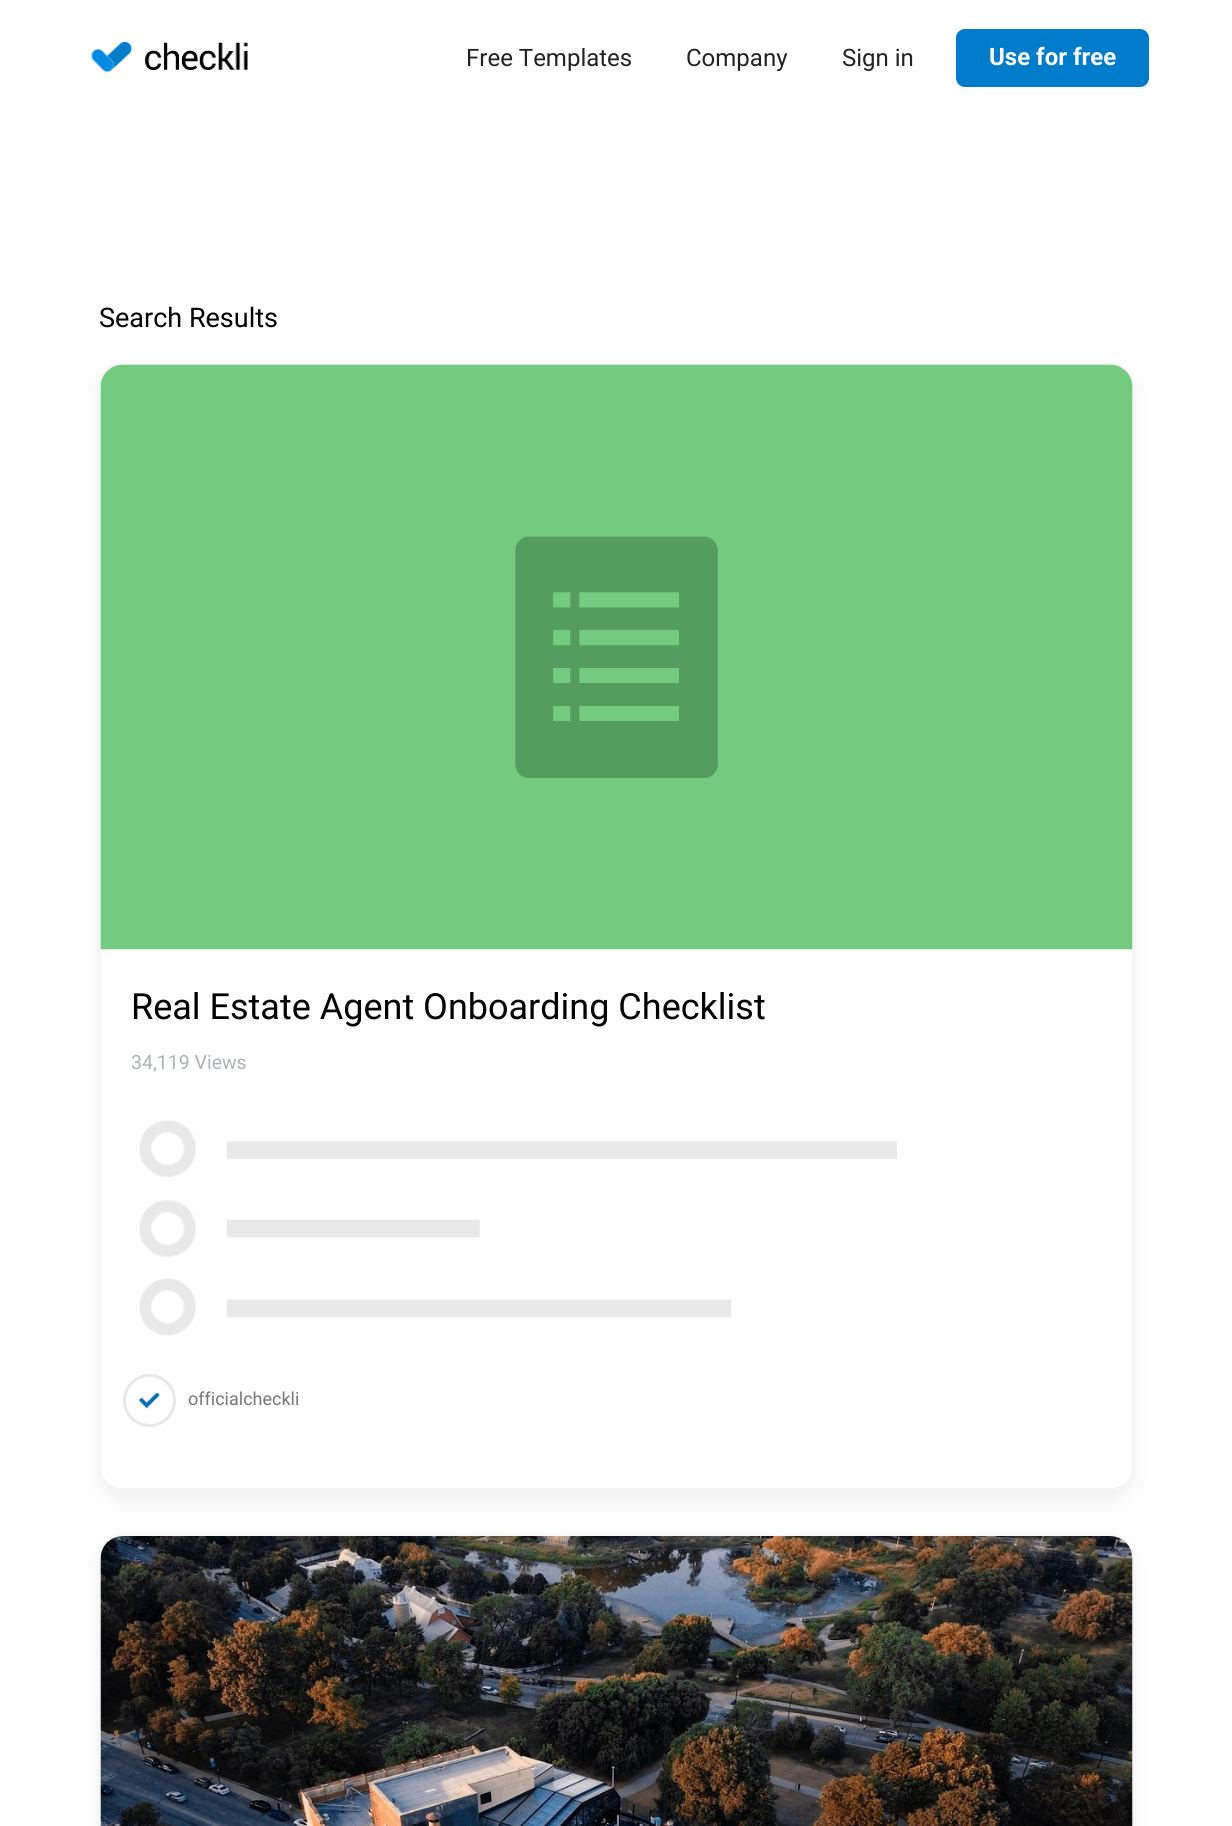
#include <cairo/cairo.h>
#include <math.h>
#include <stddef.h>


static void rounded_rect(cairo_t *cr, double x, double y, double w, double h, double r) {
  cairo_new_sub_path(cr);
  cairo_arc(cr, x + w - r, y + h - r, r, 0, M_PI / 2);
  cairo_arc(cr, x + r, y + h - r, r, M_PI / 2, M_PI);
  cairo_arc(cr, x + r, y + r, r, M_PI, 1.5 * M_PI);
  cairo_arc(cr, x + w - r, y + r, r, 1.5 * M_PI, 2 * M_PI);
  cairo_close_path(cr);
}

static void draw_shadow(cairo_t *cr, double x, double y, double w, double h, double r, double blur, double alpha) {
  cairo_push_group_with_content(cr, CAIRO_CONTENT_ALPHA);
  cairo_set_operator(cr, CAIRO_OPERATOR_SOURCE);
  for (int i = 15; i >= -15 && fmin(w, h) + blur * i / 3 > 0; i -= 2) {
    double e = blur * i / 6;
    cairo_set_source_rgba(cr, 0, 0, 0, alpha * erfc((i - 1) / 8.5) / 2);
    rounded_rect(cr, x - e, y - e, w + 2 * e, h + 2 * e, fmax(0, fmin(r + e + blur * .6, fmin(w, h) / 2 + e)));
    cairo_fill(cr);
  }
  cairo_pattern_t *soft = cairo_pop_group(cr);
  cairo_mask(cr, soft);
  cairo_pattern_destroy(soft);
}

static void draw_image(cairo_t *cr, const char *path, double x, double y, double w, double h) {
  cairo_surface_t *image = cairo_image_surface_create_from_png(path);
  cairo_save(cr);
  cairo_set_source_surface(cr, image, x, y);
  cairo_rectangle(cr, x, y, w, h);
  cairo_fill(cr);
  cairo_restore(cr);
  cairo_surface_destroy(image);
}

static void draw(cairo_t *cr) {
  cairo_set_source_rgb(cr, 1, 1, 1);
  cairo_paint(cr);
  draw_image(cr, "images/1.png", 91, 42, 157, 30);
  cairo_set_source_rgb(cr, 0, 124 / 255.0, 203 / 255.0);
  rounded_rect(cr, 956, 29, 193, 58, 9);
  cairo_fill(cr);
  cairo_save(cr);
  cairo_set_fill_rule(cr, CAIRO_FILL_RULE_EVEN_ODD);
  cairo_new_path(cr);
  cairo_move_to(cr, 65, 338);
  cairo_line_to(cr, 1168, 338);
  cairo_line_to(cr, 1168, 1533);
  cairo_line_to(cr, 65, 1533);
  cairo_close_path(cr);
  cairo_move_to(cr, 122, 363);
  cairo_line_to(cr, 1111, 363);
  cairo_curve_to(cr, 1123.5, 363, 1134, 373.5, 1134, 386);
  cairo_line_to(cr, 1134, 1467);
  cairo_curve_to(cr, 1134, 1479.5, 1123.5, 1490, 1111, 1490);
  cairo_line_to(cr, 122, 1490);
  cairo_curve_to(cr, 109.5, 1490, 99, 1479.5, 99, 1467);
  cairo_line_to(cr, 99, 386);
  cairo_curve_to(cr, 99, 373.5, 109.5, 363, 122, 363);
  cairo_close_path(cr);
  cairo_clip(cr);
  cairo_set_source_rgb(cr, 36 / 255.0, 37 / 255.0, 38 / 255.0);
  draw_shadow(cr, 99, 372, 1035, 1127, 23, 11, 0.08);
  cairo_restore(cr);
  rounded_rect(cr, 100, 364, 1033, 1125, 22);
  cairo_set_source_rgb(cr, 245 / 255.0, 245 / 255.0, 245 / 255.0);
  cairo_stroke(cr);
  draw_image(cr, "images/2.png", 100, 364, 1033, 586);
  draw_image(cr, "images/3.png", 139, 1120, 758, 215);
  cairo_arc(cr, 149.5, 1400.5, 25, 0, 2 * M_PI);
  cairo_set_source_rgb(cr, 232 / 255.0, 232 / 255.0, 232 / 255.0);
  cairo_set_line_width(cr, 3);
  cairo_stroke(cr);
  draw_image(cr, "images/4.png", 126, 1378, 34, 31);
  cairo_set_source_rgb(cr, 36 / 255.0, 37 / 255.0, 38 / 255.0);
  draw_shadow(cr, 99, 1544, 1035, 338, 23, 11, 0.08);
  rounded_rect(cr, 100, 1536, 1033, 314, 22);
  cairo_set_source_rgb(cr, 245 / 255.0, 245 / 255.0, 245 / 255.0);
  cairo_set_line_width(cr, 2);
  cairo_stroke(cr);
  draw_image(cr, "images/5.png", 100, 1536, 1033, 290);
  cairo_select_font_face(cr, "Roboto", CAIRO_FONT_SLANT_NORMAL, CAIRO_FONT_WEIGHT_NORMAL);
  cairo_set_font_size(cr, 24);
  cairo_set_source_rgb(cr, 34 / 255.0, 34 / 255.0, 34 / 255.0);
  cairo_move_to(cr, 466, 66);
  cairo_show_text(cr, "Free Templates");
  cairo_move_to(cr, 686, 66);
  cairo_show_text(cr, "Company");
  cairo_move_to(cr, 842, 66);
  cairo_show_text(cr, "Sign in");
  cairo_select_font_face(cr, "Roboto", CAIRO_FONT_SLANT_NORMAL, CAIRO_FONT_WEIGHT_BOLD);
  cairo_set_source_rgb(cr, 1, 1, 1);
  cairo_move_to(cr, 989, 65);
  cairo_show_text(cr, "Use for free");
  cairo_select_font_face(cr, "Roboto", CAIRO_FONT_SLANT_NORMAL, CAIRO_FONT_WEIGHT_NORMAL);
  cairo_set_font_size(cr, 27);
  cairo_set_source_rgb(cr, 0, 0, 0);
  cairo_move_to(cr, 99, 327);
  cairo_show_text(cr, "Search Results");
  cairo_set_font_size(cr, 36);
  cairo_move_to(cr, 131, 1019);
  cairo_show_text(cr, "Real Estate Agent Onboarding Checklist");
  cairo_set_font_size(cr, 19.5);
  cairo_set_source_rgb(cr, 174 / 255.0, 178 / 255.0, 180 / 255.0);
  cairo_move_to(cr, 131, 1069);
  cairo_show_text(cr, "34,119 Views");
  cairo_set_font_size(cr, 18);
  cairo_set_source_rgb(cr, 119 / 255.0, 119 / 255.0, 119 / 255.0);
  cairo_move_to(cr, 188, 1405);
  cairo_show_text(cr, "officialcheckli");
}

int main(void) {
  cairo_surface_t *surface = cairo_image_surface_create(CAIRO_FORMAT_RGB24, 1232, 1826);
  cairo_t *cr = cairo_create(surface);
  cairo_font_options_t *options = cairo_font_options_create();
  cairo_font_options_set_hint_metrics(options, CAIRO_HINT_METRICS_OFF);
  cairo_font_options_set_hint_style(options, CAIRO_HINT_STYLE_NONE);
  cairo_set_font_options(cr, options);
  cairo_set_miter_limit(cr, 4);
  draw(cr);
  cairo_surface_write_to_png(surface, "out.png");
  cairo_font_options_destroy(options);
  cairo_destroy(cr);
  cairo_surface_destroy(surface);
  return 0;
}
